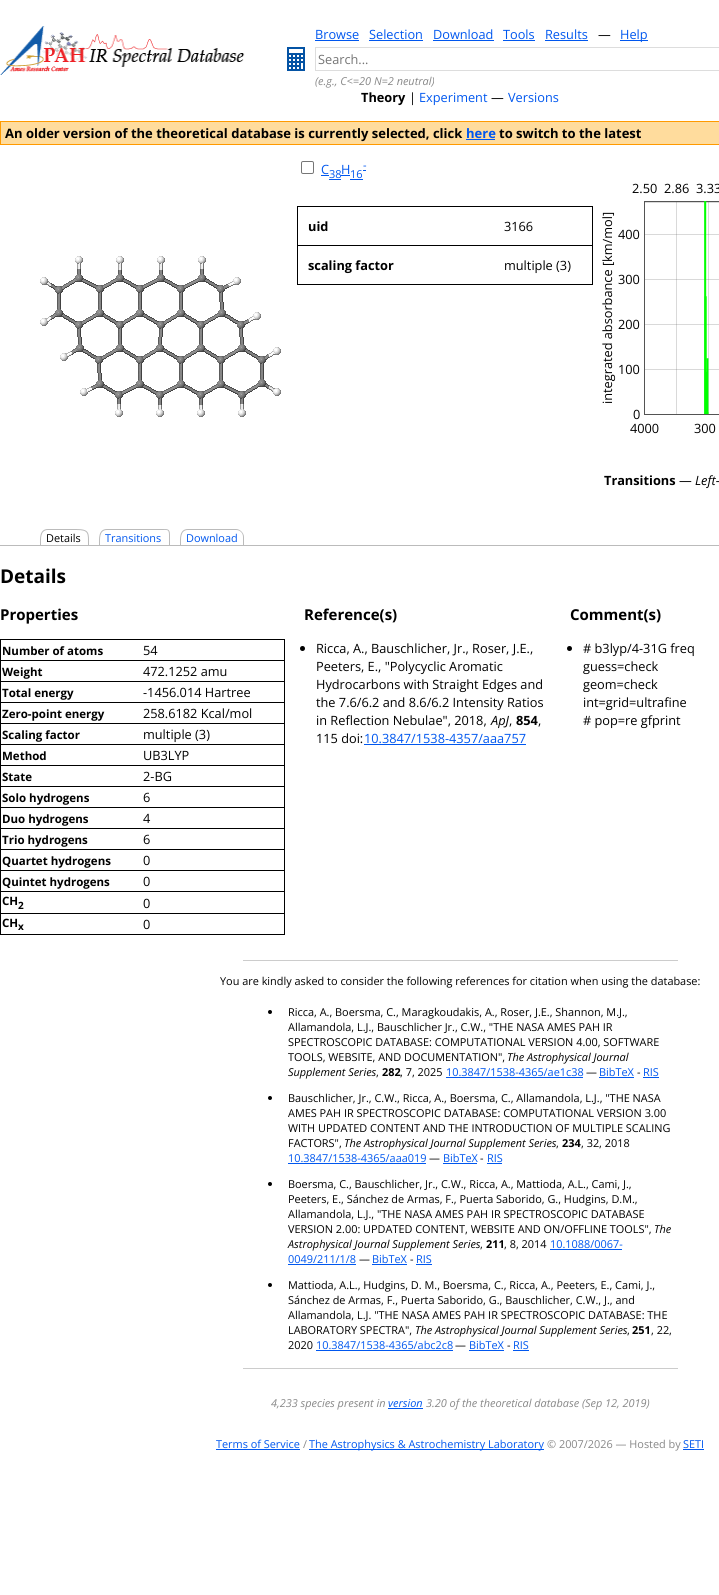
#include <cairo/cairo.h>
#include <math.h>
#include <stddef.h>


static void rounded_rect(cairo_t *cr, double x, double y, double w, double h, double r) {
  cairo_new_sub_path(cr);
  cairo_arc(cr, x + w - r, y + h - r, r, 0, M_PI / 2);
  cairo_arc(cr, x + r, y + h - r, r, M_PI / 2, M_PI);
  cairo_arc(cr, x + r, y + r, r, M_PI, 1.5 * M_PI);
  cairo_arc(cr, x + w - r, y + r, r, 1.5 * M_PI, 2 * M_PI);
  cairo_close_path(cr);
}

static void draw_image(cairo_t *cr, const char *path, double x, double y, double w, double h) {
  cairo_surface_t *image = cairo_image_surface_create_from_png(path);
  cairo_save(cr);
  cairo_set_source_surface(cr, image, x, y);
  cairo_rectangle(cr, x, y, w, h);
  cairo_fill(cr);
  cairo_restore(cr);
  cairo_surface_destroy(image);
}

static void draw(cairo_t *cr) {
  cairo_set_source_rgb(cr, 1, 1, 1);
  cairo_paint(cr);
  draw_image(cr, "images/1.png", 0, 26, 245, 49);
  cairo_set_source_rgb(cr, 0, 87 / 255.0, 239 / 255.0);
  cairo_rectangle(cr, 315, 40, 44, 1);
  cairo_fill(cr);
  cairo_rectangle(cr, 369, 40, 54, 1);
  cairo_fill(cr);
  cairo_rectangle(cr, 433, 40, 61, 1);
  cairo_fill(cr);
  cairo_rectangle(cr, 503, 40, 32, 1);
  cairo_fill(cr);
  cairo_rectangle(cr, 545, 40, 43, 1);
  cairo_fill(cr);
  cairo_rectangle(cr, 620, 40, 28, 1);
  cairo_fill(cr);
  draw_image(cr, "images/2.png", 287, 47, 18, 24);
  cairo_rectangle(cr, 315.5, 47.5, 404, 23);
  cairo_set_source_rgb(cr, 221 / 255.0, 221 / 255.0, 221 / 255.0);
  cairo_set_line_width(cr, 1);
  cairo_stroke(cr);
  cairo_set_source_rgb(cr, 1, 220 / 255.0, 157 / 255.0);
  cairo_rectangle(cr, 0.5, 121.5, 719, 23);
  cairo_fill_preserve(cr);
  cairo_set_source_rgb(cr, 1, 154 / 255.0, 0);
  cairo_stroke(cr);
  cairo_set_source_rgb(cr, 0, 87 / 255.0, 239 / 255.0);
  cairo_rectangle(cr, 466, 139, 29, 1);
  cairo_fill(cr);
  draw_image(cr, "images/3.png", 40, 256, 241, 161);
  rounded_rect(cr, 301.5, 161.5, 12, 12, 1.5);
  cairo_set_source_rgb(cr, 118 / 255.0, 118 / 255.0, 118 / 255.0);
  cairo_stroke(cr);
  cairo_set_source_rgb(cr, 0, 87 / 255.0, 239 / 255.0);
  cairo_rectangle(cr, 321, 175, 8, 1);
  cairo_fill(cr);
  cairo_rectangle(cr, 329, 179, 12, 1);
  cairo_fill(cr);
  cairo_rectangle(cr, 341, 175, 9, 1);
  cairo_fill(cr);
  cairo_rectangle(cr, 350, 179, 13, 1);
  cairo_fill(cr);
  cairo_rectangle(cr, 363, 170, 3, 1);
  cairo_fill(cr);
  cairo_set_source_rgb(cr, 0, 0, 0);
  cairo_rectangle(cr, 297, 206, 296, 1);
  cairo_fill(cr);
  cairo_rectangle(cr, 592, 206, 1, 79);
  cairo_fill(cr);
  cairo_rectangle(cr, 297, 284, 296, 1);
  cairo_fill(cr);
  cairo_rectangle(cr, 297, 206, 1, 79);
  cairo_fill(cr);
  cairo_rectangle(cr, 297, 245, 296, 1);
  cairo_fill(cr);
  draw_image(cr, "images/4.png", 644, 201, 75, 214);
  cairo_set_source_rgb(cr, 187 / 255.0, 187 / 255.0, 187 / 255.0);
  cairo_rectangle(cr, 0, 545, 719, 1);
  cairo_fill(cr);
  cairo_set_fill_rule(cr, CAIRO_FILL_RULE_EVEN_ODD);
  cairo_new_path(cr);
  cairo_move_to(cr, 48, 529);
  cairo_line_to(cr, 76, 529);
  cairo_curve_to(cr, 90, 529, 89, 533, 89, 545);
  cairo_line_to(cr, 40, 545);
  cairo_curve_to(cr, 40, 539, 39, 529, 48, 529);
  cairo_close_path(cr);
  cairo_move_to(cr, 48, 530);
  cairo_line_to(cr, 76, 530);
  cairo_curve_to(cr, 89, 530, 88, 533, 88, 545);
  cairo_line_to(cr, 41, 545);
  cairo_curve_to(cr, 41, 539, 40, 530, 48, 530);
  cairo_close_path(cr);
  cairo_fill(cr);
  cairo_new_path(cr);
  cairo_move_to(cr, 107, 529);
  cairo_line_to(cr, 162, 529);
  cairo_line_to(cr, 162, 545);
  cairo_line_to(cr, 99, 545);
  cairo_curve_to(cr, 99, 539, 98, 529, 107, 529);
  cairo_close_path(cr);
  cairo_move_to(cr, 107, 530);
  cairo_line_to(cr, 162, 530);
  cairo_line_to(cr, 162, 545);
  cairo_line_to(cr, 100, 545);
  cairo_curve_to(cr, 100, 539, 99, 530, 107, 530);
  cairo_close_path(cr);
  cairo_fill(cr);
  cairo_new_path(cr);
  cairo_move_to(cr, 162, 529);
  cairo_curve_to(cr, 167.5, 529, 170, 528.5, 170, 535);
  cairo_line_to(cr, 170, 545);
  cairo_line_to(cr, 162, 545);
  cairo_close_path(cr);
  cairo_move_to(cr, 162, 530);
  cairo_curve_to(cr, 167, 530, 169, 529, 169, 535);
  cairo_line_to(cr, 169, 545);
  cairo_line_to(cr, 162, 545);
  cairo_close_path(cr);
  cairo_fill(cr);
  cairo_new_path(cr);
  cairo_move_to(cr, 188, 529);
  cairo_line_to(cr, 236, 529);
  cairo_curve_to(cr, 240, 529, 244, 533, 244, 537);
  cairo_line_to(cr, 244, 545);
  cairo_line_to(cr, 180, 545);
  cairo_curve_to(cr, 180, 539, 179, 529, 188, 529);
  cairo_close_path(cr);
  cairo_move_to(cr, 188, 530);
  cairo_line_to(cr, 236, 530);
  cairo_curve_to(cr, 240, 530, 243, 533, 243, 537);
  cairo_line_to(cr, 243, 545);
  cairo_line_to(cr, 181, 545);
  cairo_curve_to(cr, 181, 539, 180, 530, 188, 530);
  cairo_close_path(cr);
  cairo_fill(cr);
  cairo_set_source_rgb(cr, 0, 0, 0);
  cairo_rectangle(cr, 0, 639, 285, 1);
  cairo_fill(cr);
  cairo_rectangle(cr, 284, 639, 1, 296);
  cairo_fill(cr);
  cairo_rectangle(cr, 0, 934, 285, 1);
  cairo_fill(cr);
  cairo_rectangle(cr, 0, 639, 1, 296);
  cairo_fill(cr);
  cairo_rectangle(cr, 0, 660, 285, 1);
  cairo_fill(cr);
  cairo_rectangle(cr, 0, 681, 285, 1);
  cairo_fill(cr);
  cairo_rectangle(cr, 0, 702, 285, 1);
  cairo_fill(cr);
  cairo_rectangle(cr, 0, 723, 285, 1);
  cairo_fill(cr);
  cairo_rectangle(cr, 0, 744, 285, 1);
  cairo_fill(cr);
  cairo_rectangle(cr, 0, 765, 285, 1);
  cairo_fill(cr);
  cairo_rectangle(cr, 0, 786, 285, 1);
  cairo_fill(cr);
  cairo_rectangle(cr, 0, 807, 285, 1);
  cairo_fill(cr);
  cairo_rectangle(cr, 0, 828, 285, 1);
  cairo_fill(cr);
  cairo_rectangle(cr, 0, 849, 285, 1);
  cairo_fill(cr);
  cairo_rectangle(cr, 0, 870, 285, 1);
  cairo_fill(cr);
  cairo_rectangle(cr, 0, 891, 285, 1);
  cairo_fill(cr);
  cairo_rectangle(cr, 0, 913, 285, 1);
  cairo_fill(cr);
  cairo_arc(cr, 302.5, 648.5, 2.5, 0, 2 * M_PI);
  cairo_fill(cr);
  cairo_set_source_rgb(cr, 0, 87 / 255.0, 239 / 255.0);
  cairo_rectangle(cr, 364, 744, 162, 1);
  cairo_fill(cr);
  cairo_set_source_rgb(cr, 0, 0, 0);
  cairo_arc(cr, 569.5, 648.5, 2.5, 0, 2 * M_PI);
  cairo_fill(cr);
  cairo_set_source_rgb(cr, 204 / 255.0, 204 / 255.0, 204 / 255.0);
  cairo_rectangle(cr, 243, 960, 435, 1);
  cairo_fill(cr);
  cairo_set_source_rgb(cr, 0, 0, 0);
  cairo_arc(cr, 270, 1012, 2, 0, 2 * M_PI);
  cairo_fill(cr);
  cairo_set_source_rgb(cr, 0, 87 / 255.0, 239 / 255.0);
  cairo_rectangle(cr, 446, 1077, 137, 1);
  cairo_fill(cr);
  cairo_rectangle(cr, 599, 1077, 35, 1);
  cairo_fill(cr);
  cairo_rectangle(cr, 643, 1077, 16, 1);
  cairo_fill(cr);
  cairo_set_source_rgb(cr, 0, 0, 0);
  cairo_arc(cr, 270, 1098, 2, 0, 2 * M_PI);
  cairo_fill(cr);
  cairo_set_source_rgb(cr, 0, 87 / 255.0, 239 / 255.0);
  cairo_rectangle(cr, 288, 1163, 138, 1);
  cairo_fill(cr);
  cairo_rectangle(cr, 443, 1163, 34, 1);
  cairo_fill(cr);
  cairo_rectangle(cr, 487, 1163, 15, 1);
  cairo_fill(cr);
  cairo_set_source_rgb(cr, 0, 0, 0);
  cairo_arc(cr, 270, 1184, 2, 0, 2 * M_PI);
  cairo_fill(cr);
  cairo_set_source_rgb(cr, 0, 87 / 255.0, 239 / 255.0);
  cairo_rectangle(cr, 550, 1249, 72, 1);
  cairo_fill(cr);
  cairo_rectangle(cr, 288, 1264, 68, 1);
  cairo_fill(cr);
  cairo_rectangle(cr, 372, 1264, 35, 1);
  cairo_fill(cr);
  cairo_rectangle(cr, 416, 1264, 16, 1);
  cairo_fill(cr);
  cairo_set_source_rgb(cr, 0, 0, 0);
  cairo_arc(cr, 270, 1285, 2, 0, 2 * M_PI);
  cairo_fill(cr);
  cairo_set_source_rgb(cr, 0, 87 / 255.0, 239 / 255.0);
  cairo_rectangle(cr, 316, 1350, 137, 1);
  cairo_fill(cr);
  cairo_rectangle(cr, 469, 1350, 35, 1);
  cairo_fill(cr);
  cairo_rectangle(cr, 513, 1350, 16, 1);
  cairo_fill(cr);
  cairo_set_source_rgb(cr, 204 / 255.0, 204 / 255.0, 204 / 255.0);
  cairo_rectangle(cr, 243, 1368, 435, 1);
  cairo_fill(cr);
  cairo_set_source_rgb(cr, 0, 87 / 255.0, 239 / 255.0);
  cairo_rectangle(cr, 388, 1408, 35, 1);
  cairo_fill(cr);
  cairo_rectangle(cr, 216, 1449, 84, 1);
  cairo_fill(cr);
  cairo_rectangle(cr, 309, 1449, 235, 1);
  cairo_fill(cr);
  cairo_rectangle(cr, 683, 1449, 21, 1);
  cairo_fill(cr);
  cairo_select_font_face(cr, "Open Sans", CAIRO_FONT_SLANT_NORMAL, CAIRO_FONT_WEIGHT_NORMAL);
  cairo_set_font_size(cr, 12.75);
  cairo_move_to(cr, 315, 39);
  cairo_show_text(cr, "Browse");
  cairo_move_to(cr, 369, 39);
  cairo_show_text(cr, "Selection");
  cairo_move_to(cr, 433, 39);
  cairo_show_text(cr, "Download");
  cairo_move_to(cr, 503, 39);
  cairo_show_text(cr, "Tools");
  cairo_move_to(cr, 545, 39);
  cairo_show_text(cr, "Results");
  cairo_set_source_rgb(cr, 0, 0, 0);
  cairo_move_to(cr, 598, 39);
  cairo_show_text(cr, "—");
  cairo_set_source_rgb(cr, 0, 87 / 255.0, 239 / 255.0);
  cairo_move_to(cr, 620, 39);
  cairo_show_text(cr, "Help");
  cairo_set_source_rgb(cr, 117 / 255.0, 117 / 255.0, 117 / 255.0);
  cairo_move_to(cr, 318, 64);
  cairo_show_text(cr, "Search...");
  cairo_select_font_face(cr, "Open Sans", CAIRO_FONT_SLANT_ITALIC, CAIRO_FONT_WEIGHT_NORMAL);
  cairo_set_font_size(cr, 10.9);
  cairo_set_source_rgb(cr, 136 / 255.0, 136 / 255.0, 136 / 255.0);
  cairo_move_to(cr, 315, 85);
  cairo_show_text(cr, "(e.g., C<=20 N=2 neutral)");
  cairo_select_font_face(cr, "Open Sans", CAIRO_FONT_SLANT_NORMAL, CAIRO_FONT_WEIGHT_BOLD);
  cairo_set_font_size(cr, 12.75);
  cairo_set_source_rgb(cr, 0, 0, 0);
  cairo_move_to(cr, 361, 102);
  cairo_show_text(cr, "Theory");
  cairo_select_font_face(cr, "Open Sans", CAIRO_FONT_SLANT_NORMAL, CAIRO_FONT_WEIGHT_NORMAL);
  cairo_move_to(cr, 409, 102);
  cairo_show_text(cr, "|");
  cairo_set_source_rgb(cr, 0, 87 / 255.0, 239 / 255.0);
  cairo_move_to(cr, 419, 102);
  cairo_show_text(cr, "Experiment");
  cairo_set_source_rgb(cr, 0, 0, 0);
  cairo_move_to(cr, 491, 102);
  cairo_show_text(cr, "—");
  cairo_set_source_rgb(cr, 0, 87 / 255.0, 239 / 255.0);
  cairo_move_to(cr, 508, 102);
  cairo_show_text(cr, "Versions");
  cairo_select_font_face(cr, "Open Sans", CAIRO_FONT_SLANT_NORMAL, CAIRO_FONT_WEIGHT_BOLD);
  cairo_set_font_size(cr, 13);
  cairo_set_source_rgb(cr, 0, 0, 0);
  cairo_move_to(cr, 5, 138);
  cairo_show_text(cr, "An older version of the theoretical database is currently selected, click");
  cairo_set_source_rgb(cr, 0, 87 / 255.0, 239 / 255.0);
  cairo_move_to(cr, 466, 138);
  cairo_show_text(cr, "here");
  cairo_set_source_rgb(cr, 0, 0, 0);
  cairo_move_to(cr, 499, 138);
  cairo_show_text(cr, "to switch to the latest");
  cairo_select_font_face(cr, "Open Sans", CAIRO_FONT_SLANT_NORMAL, CAIRO_FONT_WEIGHT_NORMAL);
  cairo_set_font_size(cr, 12.75);
  cairo_set_source_rgb(cr, 0, 87 / 255.0, 239 / 255.0);
  cairo_move_to(cr, 321, 174);
  cairo_show_text(cr, "C");
  cairo_move_to(cr, 341, 174);
  cairo_show_text(cr, "H");
  cairo_set_font_size(cr, 11);
  cairo_move_to(cr, 363, 169);
  cairo_show_text(cr, "-");
  cairo_move_to(cr, 329, 178);
  cairo_show_text(cr, "38");
  cairo_move_to(cr, 350, 178);
  cairo_show_text(cr, "16");
  cairo_select_font_face(cr, "Open Sans", CAIRO_FONT_SLANT_NORMAL, CAIRO_FONT_WEIGHT_BOLD);
  cairo_set_font_size(cr, 12.75);
  cairo_set_source_rgb(cr, 0, 0, 0);
  cairo_move_to(cr, 308, 231);
  cairo_show_text(cr, "uid");
  cairo_select_font_face(cr, "Open Sans", CAIRO_FONT_SLANT_NORMAL, CAIRO_FONT_WEIGHT_NORMAL);
  cairo_move_to(cr, 504, 231);
  cairo_show_text(cr, "3166");
  cairo_select_font_face(cr, "Open Sans", CAIRO_FONT_SLANT_NORMAL, CAIRO_FONT_WEIGHT_BOLD);
  cairo_move_to(cr, 308, 270);
  cairo_show_text(cr, "scaling factor");
  cairo_select_font_face(cr, "Open Sans", CAIRO_FONT_SLANT_NORMAL, CAIRO_FONT_WEIGHT_NORMAL);
  cairo_move_to(cr, 504, 270);
  cairo_show_text(cr, "multiple (3)");
  cairo_move_to(cr, 632, 193);
  cairo_show_text(cr, "2.50");
  cairo_move_to(cr, 664, 193);
  cairo_show_text(cr, "2.86");
  cairo_move_to(cr, 696, 193);
  cairo_show_text(cr, "3.33");
  cairo_save(cr);
  cairo_translate(cr, 612, 404);
  cairo_rotate(cr, -90 * M_PI / 180);
  cairo_move_to(cr, 0, 0);
  cairo_show_text(cr, "integrated absorbance [km/mol]");
  cairo_restore(cr);
  cairo_move_to(cr, 618, 239);
  cairo_show_text(cr, "400");
  cairo_move_to(cr, 618, 284);
  cairo_show_text(cr, "300");
  cairo_move_to(cr, 618, 329);
  cairo_show_text(cr, "200");
  cairo_move_to(cr, 618, 374);
  cairo_show_text(cr, "100");
  cairo_move_to(cr, 633, 419);
  cairo_show_text(cr, "0");
  cairo_move_to(cr, 630, 433);
  cairo_show_text(cr, "4000");
  cairo_move_to(cr, 694, 433);
  cairo_show_text(cr, "300");
  cairo_select_font_face(cr, "Open Sans", CAIRO_FONT_SLANT_NORMAL, CAIRO_FONT_WEIGHT_BOLD);
  cairo_move_to(cr, 604, 485);
  cairo_show_text(cr, "Transitions");
  cairo_select_font_face(cr, "Open Sans", CAIRO_FONT_SLANT_NORMAL, CAIRO_FONT_WEIGHT_NORMAL);
  cairo_move_to(cr, 679, 485);
  cairo_show_text(cr, "—");
  cairo_select_font_face(cr, "Open Sans", CAIRO_FONT_SLANT_ITALIC, CAIRO_FONT_WEIGHT_NORMAL);
  cairo_move_to(cr, 695, 485);
  cairo_show_text(cr, "Left-");
  cairo_select_font_face(cr, "Open Sans", CAIRO_FONT_SLANT_NORMAL, CAIRO_FONT_WEIGHT_NORMAL);
  cairo_set_font_size(cr, 10.9);
  cairo_move_to(cr, 46, 542);
  cairo_show_text(cr, "Details");
  cairo_set_source_rgb(cr, 0, 87 / 255.0, 239 / 255.0);
  cairo_move_to(cr, 105, 542);
  cairo_show_text(cr, "Transitions");
  cairo_move_to(cr, 186, 542);
  cairo_show_text(cr, "Download");
  cairo_select_font_face(cr, "Open Sans", CAIRO_FONT_SLANT_NORMAL, CAIRO_FONT_WEIGHT_BOLD);
  cairo_set_font_size(cr, 19);
  cairo_set_source_rgb(cr, 0, 0, 0);
  cairo_move_to(cr, 0, 583);
  cairo_show_text(cr, "Details");
  cairo_set_font_size(cr, 15);
  cairo_move_to(cr, 0, 620);
  cairo_show_text(cr, "Properties");
  cairo_set_font_size(cr, 11.5);
  cairo_move_to(cr, 2, 655);
  cairo_show_text(cr, "Number of atoms");
  cairo_select_font_face(cr, "Open Sans", CAIRO_FONT_SLANT_NORMAL, CAIRO_FONT_WEIGHT_NORMAL);
  cairo_set_font_size(cr, 12.75);
  cairo_move_to(cr, 143, 655);
  cairo_show_text(cr, "54");
  cairo_select_font_face(cr, "Open Sans", CAIRO_FONT_SLANT_NORMAL, CAIRO_FONT_WEIGHT_BOLD);
  cairo_set_font_size(cr, 11.5);
  cairo_move_to(cr, 2, 676);
  cairo_show_text(cr, "Weight");
  cairo_select_font_face(cr, "Open Sans", CAIRO_FONT_SLANT_NORMAL, CAIRO_FONT_WEIGHT_NORMAL);
  cairo_set_font_size(cr, 12.75);
  cairo_move_to(cr, 143, 676);
  cairo_show_text(cr, "472.1252 amu");
  cairo_select_font_face(cr, "Open Sans", CAIRO_FONT_SLANT_NORMAL, CAIRO_FONT_WEIGHT_BOLD);
  cairo_set_font_size(cr, 11.5);
  cairo_move_to(cr, 2, 697);
  cairo_show_text(cr, "Total energy");
  cairo_select_font_face(cr, "Open Sans", CAIRO_FONT_SLANT_NORMAL, CAIRO_FONT_WEIGHT_NORMAL);
  cairo_set_font_size(cr, 12.75);
  cairo_move_to(cr, 143, 697);
  cairo_show_text(cr, "-1456.014 Hartree");
  cairo_select_font_face(cr, "Open Sans", CAIRO_FONT_SLANT_NORMAL, CAIRO_FONT_WEIGHT_BOLD);
  cairo_set_font_size(cr, 11.5);
  cairo_move_to(cr, 2, 718);
  cairo_show_text(cr, "Zero-point energy");
  cairo_select_font_face(cr, "Open Sans", CAIRO_FONT_SLANT_NORMAL, CAIRO_FONT_WEIGHT_NORMAL);
  cairo_set_font_size(cr, 12.75);
  cairo_move_to(cr, 143, 718);
  cairo_show_text(cr, "258.6182 Kcal/mol");
  cairo_select_font_face(cr, "Open Sans", CAIRO_FONT_SLANT_NORMAL, CAIRO_FONT_WEIGHT_BOLD);
  cairo_set_font_size(cr, 11.5);
  cairo_move_to(cr, 2, 739);
  cairo_show_text(cr, "Scaling factor");
  cairo_select_font_face(cr, "Open Sans", CAIRO_FONT_SLANT_NORMAL, CAIRO_FONT_WEIGHT_NORMAL);
  cairo_set_font_size(cr, 12.75);
  cairo_move_to(cr, 143, 739);
  cairo_show_text(cr, "multiple (3)");
  cairo_select_font_face(cr, "Open Sans", CAIRO_FONT_SLANT_NORMAL, CAIRO_FONT_WEIGHT_BOLD);
  cairo_set_font_size(cr, 11.5);
  cairo_move_to(cr, 2, 760);
  cairo_show_text(cr, "Method");
  cairo_select_font_face(cr, "Open Sans", CAIRO_FONT_SLANT_NORMAL, CAIRO_FONT_WEIGHT_NORMAL);
  cairo_set_font_size(cr, 12.75);
  cairo_move_to(cr, 143, 760);
  cairo_show_text(cr, "UB3LYP");
  cairo_select_font_face(cr, "Open Sans", CAIRO_FONT_SLANT_NORMAL, CAIRO_FONT_WEIGHT_BOLD);
  cairo_set_font_size(cr, 11.5);
  cairo_move_to(cr, 2, 781);
  cairo_show_text(cr, "State");
  cairo_select_font_face(cr, "Open Sans", CAIRO_FONT_SLANT_NORMAL, CAIRO_FONT_WEIGHT_NORMAL);
  cairo_set_font_size(cr, 12.75);
  cairo_move_to(cr, 143, 781);
  cairo_show_text(cr, "2-BG");
  cairo_select_font_face(cr, "Open Sans", CAIRO_FONT_SLANT_NORMAL, CAIRO_FONT_WEIGHT_BOLD);
  cairo_set_font_size(cr, 11.5);
  cairo_move_to(cr, 2, 802);
  cairo_show_text(cr, "Solo hydrogens");
  cairo_select_font_face(cr, "Open Sans", CAIRO_FONT_SLANT_NORMAL, CAIRO_FONT_WEIGHT_NORMAL);
  cairo_set_font_size(cr, 12.75);
  cairo_move_to(cr, 143, 802);
  cairo_show_text(cr, "6");
  cairo_select_font_face(cr, "Open Sans", CAIRO_FONT_SLANT_NORMAL, CAIRO_FONT_WEIGHT_BOLD);
  cairo_set_font_size(cr, 11.5);
  cairo_move_to(cr, 2, 823);
  cairo_show_text(cr, "Duo hydrogens");
  cairo_select_font_face(cr, "Open Sans", CAIRO_FONT_SLANT_NORMAL, CAIRO_FONT_WEIGHT_NORMAL);
  cairo_set_font_size(cr, 12.75);
  cairo_move_to(cr, 143, 823);
  cairo_show_text(cr, "4");
  cairo_select_font_face(cr, "Open Sans", CAIRO_FONT_SLANT_NORMAL, CAIRO_FONT_WEIGHT_BOLD);
  cairo_set_font_size(cr, 11.5);
  cairo_move_to(cr, 2, 844);
  cairo_show_text(cr, "Trio hydrogens");
  cairo_select_font_face(cr, "Open Sans", CAIRO_FONT_SLANT_NORMAL, CAIRO_FONT_WEIGHT_NORMAL);
  cairo_set_font_size(cr, 12.75);
  cairo_move_to(cr, 143, 844);
  cairo_show_text(cr, "6");
  cairo_select_font_face(cr, "Open Sans", CAIRO_FONT_SLANT_NORMAL, CAIRO_FONT_WEIGHT_BOLD);
  cairo_set_font_size(cr, 11.5);
  cairo_move_to(cr, 2, 865);
  cairo_show_text(cr, "Quartet hydrogens");
  cairo_select_font_face(cr, "Open Sans", CAIRO_FONT_SLANT_NORMAL, CAIRO_FONT_WEIGHT_NORMAL);
  cairo_set_font_size(cr, 12.75);
  cairo_move_to(cr, 143, 865);
  cairo_show_text(cr, "0");
  cairo_select_font_face(cr, "Open Sans", CAIRO_FONT_SLANT_NORMAL, CAIRO_FONT_WEIGHT_BOLD);
  cairo_set_font_size(cr, 11.5);
  cairo_move_to(cr, 2, 886);
  cairo_show_text(cr, "Quintet hydrogens");
  cairo_select_font_face(cr, "Open Sans", CAIRO_FONT_SLANT_NORMAL, CAIRO_FONT_WEIGHT_NORMAL);
  cairo_set_font_size(cr, 12.75);
  cairo_move_to(cr, 143, 886);
  cairo_show_text(cr, "0");
  cairo_select_font_face(cr, "Open Sans", CAIRO_FONT_SLANT_NORMAL, CAIRO_FONT_WEIGHT_BOLD);
  cairo_set_font_size(cr, 11.5);
  cairo_move_to(cr, 2, 905);
  cairo_show_text(cr, "CH");
  cairo_set_font_size(cr, 10);
  cairo_move_to(cr, 18, 909);
  cairo_show_text(cr, "2");
  cairo_select_font_face(cr, "Open Sans", CAIRO_FONT_SLANT_NORMAL, CAIRO_FONT_WEIGHT_NORMAL);
  cairo_set_font_size(cr, 12.75);
  cairo_move_to(cr, 143, 908);
  cairo_show_text(cr, "0");
  cairo_select_font_face(cr, "Open Sans", CAIRO_FONT_SLANT_NORMAL, CAIRO_FONT_WEIGHT_BOLD);
  cairo_set_font_size(cr, 11.5);
  cairo_move_to(cr, 2, 927);
  cairo_show_text(cr, "CH");
  cairo_set_font_size(cr, 10);
  cairo_move_to(cr, 18, 930);
  cairo_show_text(cr, "x");
  cairo_select_font_face(cr, "Open Sans", CAIRO_FONT_SLANT_NORMAL, CAIRO_FONT_WEIGHT_NORMAL);
  cairo_set_font_size(cr, 12.75);
  cairo_move_to(cr, 143, 929);
  cairo_show_text(cr, "0");
  cairo_select_font_face(cr, "Open Sans", CAIRO_FONT_SLANT_NORMAL, CAIRO_FONT_WEIGHT_BOLD);
  cairo_set_font_size(cr, 15);
  cairo_move_to(cr, 304, 620);
  cairo_show_text(cr, "Reference(s)");
  cairo_select_font_face(cr, "Open Sans", CAIRO_FONT_SLANT_NORMAL, CAIRO_FONT_WEIGHT_NORMAL);
  cairo_set_font_size(cr, 12.75);
  cairo_move_to(cr, 316, 653);
  cairo_show_text(cr, "Ricca, A., Bauschlicher, Jr., Roser, J.E.,");
  cairo_move_to(cr, 316, 671);
  cairo_show_text(cr, "Peeters, E., \"Polycyclic Aromatic");
  cairo_move_to(cr, 316, 689);
  cairo_show_text(cr, "Hydrocarbons with Straight Edges and");
  cairo_move_to(cr, 316, 707);
  cairo_show_text(cr, "the 7.6/6.2 and 8.6/6.2 Intensity Ratios");
  cairo_move_to(cr, 316, 725);
  cairo_show_text(cr, "in Reflection Nebulae\", 2018,");
  cairo_select_font_face(cr, "Open Sans", CAIRO_FONT_SLANT_ITALIC, CAIRO_FONT_WEIGHT_NORMAL);
  cairo_move_to(cr, 491, 725);
  cairo_show_text(cr, "ApJ");
  cairo_select_font_face(cr, "Open Sans", CAIRO_FONT_SLANT_NORMAL, CAIRO_FONT_WEIGHT_NORMAL);
  cairo_move_to(cr, 509, 725);
  cairo_show_text(cr, ",");
  cairo_select_font_face(cr, "Open Sans", CAIRO_FONT_SLANT_NORMAL, CAIRO_FONT_WEIGHT_BOLD);
  cairo_move_to(cr, 516, 725);
  cairo_show_text(cr, "854");
  cairo_select_font_face(cr, "Open Sans", CAIRO_FONT_SLANT_NORMAL, CAIRO_FONT_WEIGHT_NORMAL);
  cairo_move_to(cr, 538, 725);
  cairo_show_text(cr, ",");
  cairo_move_to(cr, 316, 743);
  cairo_show_text(cr, "115 doi:");
  cairo_set_source_rgb(cr, 0, 87 / 255.0, 239 / 255.0);
  cairo_move_to(cr, 364, 743);
  cairo_show_text(cr, "10.3847/1538-4357/aaa757");
  cairo_select_font_face(cr, "Open Sans", CAIRO_FONT_SLANT_NORMAL, CAIRO_FONT_WEIGHT_BOLD);
  cairo_set_font_size(cr, 15);
  cairo_set_source_rgb(cr, 0, 0, 0);
  cairo_move_to(cr, 570, 620);
  cairo_show_text(cr, "Comment(s)");
  cairo_select_font_face(cr, "Open Sans", CAIRO_FONT_SLANT_NORMAL, CAIRO_FONT_WEIGHT_NORMAL);
  cairo_set_font_size(cr, 12.75);
  cairo_move_to(cr, 583, 653);
  cairo_show_text(cr, "# b3lyp/4-31G freq");
  cairo_move_to(cr, 583, 671);
  cairo_show_text(cr, "guess=check");
  cairo_move_to(cr, 583, 689);
  cairo_show_text(cr, "geom=check");
  cairo_move_to(cr, 583, 707);
  cairo_show_text(cr, "int=grid=ultrafine");
  cairo_move_to(cr, 583, 725);
  cairo_show_text(cr, "# pop=re gfprint");
  cairo_set_font_size(cr, 10.9);
  cairo_move_to(cr, 220, 985);
  cairo_show_text(cr, "You are kindly asked to consider the following references for citation when using the database:");
  cairo_move_to(cr, 288, 1016);
  cairo_show_text(cr, "Ricca, A., Boersma, C., Maragkoudakis, A., Roser, J.E., Shannon, M.J.,");
  cairo_move_to(cr, 288, 1031);
  cairo_show_text(cr, "Allamandola, L.J., Bauschlicher Jr., C.W., \"THE NASA AMES PAH IR");
  cairo_move_to(cr, 288, 1046);
  cairo_show_text(cr, "SPECTROSCOPIC DATABASE: COMPUTATIONAL VERSION 4.00, SOFTWARE");
  cairo_move_to(cr, 288, 1061);
  cairo_show_text(cr, "TOOLS, WEBSITE, AND DOCUMENTATION\",");
  cairo_select_font_face(cr, "Open Sans", CAIRO_FONT_SLANT_ITALIC, CAIRO_FONT_WEIGHT_NORMAL);
  cairo_move_to(cr, 507, 1061);
  cairo_show_text(cr, "The Astrophysical Journal");
  cairo_move_to(cr, 288, 1076);
  cairo_show_text(cr, "Supplement Series");
  cairo_select_font_face(cr, "Open Sans", CAIRO_FONT_SLANT_NORMAL, CAIRO_FONT_WEIGHT_BOLD);
  cairo_move_to(cr, 382, 1076);
  cairo_show_text(cr, "282");
  cairo_select_font_face(cr, "Open Sans", CAIRO_FONT_SLANT_NORMAL, CAIRO_FONT_WEIGHT_NORMAL);
  cairo_move_to(cr, 400, 1076);
  cairo_show_text(cr, ", 7, 2025");
  cairo_set_source_rgb(cr, 0, 87 / 255.0, 239 / 255.0);
  cairo_move_to(cr, 446, 1076);
  cairo_show_text(cr, "10.3847/1538-4365/ae1c38");
  cairo_set_source_rgb(cr, 0, 0, 0);
  cairo_move_to(cr, 586, 1076);
  cairo_show_text(cr, "—");
  cairo_set_source_rgb(cr, 0, 87 / 255.0, 239 / 255.0);
  cairo_move_to(cr, 599, 1076);
  cairo_show_text(cr, "BibTeX");
  cairo_set_source_rgb(cr, 0, 0, 0);
  cairo_move_to(cr, 637, 1076);
  cairo_show_text(cr, "-");
  cairo_set_source_rgb(cr, 0, 87 / 255.0, 239 / 255.0);
  cairo_move_to(cr, 643, 1076);
  cairo_show_text(cr, "RIS");
  cairo_set_source_rgb(cr, 0, 0, 0);
  cairo_move_to(cr, 376, 1076);
  cairo_show_text(cr, ",");
  cairo_move_to(cr, 288, 1102);
  cairo_show_text(cr, "Bauschlicher, Jr., C.W., Ricca, A., Boersma, C., Allamandola, L.J., \"THE NASA");
  cairo_move_to(cr, 288, 1117);
  cairo_show_text(cr, "AMES PAH IR SPECTROSCOPIC DATABASE: COMPUTATIONAL VERSION 3.00");
  cairo_move_to(cr, 288, 1132);
  cairo_show_text(cr, "WITH UPDATED CONTENT AND THE INTRODUCTION OF MULTIPLE SCALING");
  cairo_move_to(cr, 288, 1147);
  cairo_show_text(cr, "FACTORS\",");
  cairo_select_font_face(cr, "Open Sans", CAIRO_FONT_SLANT_ITALIC, CAIRO_FONT_WEIGHT_NORMAL);
  cairo_move_to(cr, 344, 1147);
  cairo_show_text(cr, "The Astrophysical Journal Supplement Series");
  cairo_select_font_face(cr, "Open Sans", CAIRO_FONT_SLANT_NORMAL, CAIRO_FONT_WEIGHT_NORMAL);
  cairo_move_to(cr, 556, 1147);
  cairo_show_text(cr, ",");
  cairo_select_font_face(cr, "Open Sans", CAIRO_FONT_SLANT_NORMAL, CAIRO_FONT_WEIGHT_BOLD);
  cairo_move_to(cr, 562, 1147);
  cairo_show_text(cr, "234");
  cairo_select_font_face(cr, "Open Sans", CAIRO_FONT_SLANT_NORMAL, CAIRO_FONT_WEIGHT_NORMAL);
  cairo_move_to(cr, 581, 1147);
  cairo_show_text(cr, ", 32, 2018");
  cairo_set_source_rgb(cr, 0, 87 / 255.0, 239 / 255.0);
  cairo_move_to(cr, 288, 1162);
  cairo_show_text(cr, "10.3847/1538-4365/aaa019");
  cairo_set_source_rgb(cr, 0, 0, 0);
  cairo_move_to(cr, 429, 1162);
  cairo_show_text(cr, "—");
  cairo_set_source_rgb(cr, 0, 87 / 255.0, 239 / 255.0);
  cairo_move_to(cr, 443, 1162);
  cairo_show_text(cr, "BibTeX");
  cairo_set_source_rgb(cr, 0, 0, 0);
  cairo_move_to(cr, 480, 1162);
  cairo_show_text(cr, "-");
  cairo_set_source_rgb(cr, 0, 87 / 255.0, 239 / 255.0);
  cairo_move_to(cr, 487, 1162);
  cairo_show_text(cr, "RIS");
  cairo_set_source_rgb(cr, 0, 0, 0);
  cairo_move_to(cr, 288, 1188);
  cairo_show_text(cr, "Boersma, C., Bauschlicher, Jr., C.W., Ricca, A., Mattioda, A.L., Cami, J.,");
  cairo_move_to(cr, 288, 1203);
  cairo_show_text(cr, "Peeters, E., Sánchez de Armas, F., Puerta Saborido, G., Hudgins, D.M.,");
  cairo_move_to(cr, 288, 1218);
  cairo_show_text(cr, "Allamandola, L.J., \"THE NASA AMES PAH IR SPECTROSCOPIC DATABASE");
  cairo_move_to(cr, 288, 1233);
  cairo_show_text(cr, "VERSION 2.00: UPDATED CONTENT, WEBSITE AND ON/OFFLINE TOOLS\",");
  cairo_select_font_face(cr, "Open Sans", CAIRO_FONT_SLANT_ITALIC, CAIRO_FONT_WEIGHT_NORMAL);
  cairo_move_to(cr, 654, 1233);
  cairo_show_text(cr, "The");
  cairo_move_to(cr, 288, 1248);
  cairo_show_text(cr, "Astrophysical Journal Supplement Series");
  cairo_select_font_face(cr, "Open Sans", CAIRO_FONT_SLANT_NORMAL, CAIRO_FONT_WEIGHT_NORMAL);
  cairo_move_to(cr, 480, 1248);
  cairo_show_text(cr, ",");
  cairo_select_font_face(cr, "Open Sans", CAIRO_FONT_SLANT_NORMAL, CAIRO_FONT_WEIGHT_BOLD);
  cairo_move_to(cr, 486, 1248);
  cairo_show_text(cr, "211");
  cairo_select_font_face(cr, "Open Sans", CAIRO_FONT_SLANT_NORMAL, CAIRO_FONT_WEIGHT_NORMAL);
  cairo_move_to(cr, 504, 1248);
  cairo_show_text(cr, ", 8, 2014");
  cairo_set_source_rgb(cr, 0, 87 / 255.0, 239 / 255.0);
  cairo_move_to(cr, 550, 1248);
  cairo_show_text(cr, "10.1088/0067-");
  cairo_move_to(cr, 288, 1263);
  cairo_show_text(cr, "0049/211/1/8");
  cairo_set_source_rgb(cr, 0, 0, 0);
  cairo_move_to(cr, 359, 1263);
  cairo_show_text(cr, "—");
  cairo_set_source_rgb(cr, 0, 87 / 255.0, 239 / 255.0);
  cairo_move_to(cr, 372, 1263);
  cairo_show_text(cr, "BibTeX");
  cairo_set_source_rgb(cr, 0, 0, 0);
  cairo_move_to(cr, 410, 1263);
  cairo_show_text(cr, "-");
  cairo_set_source_rgb(cr, 0, 87 / 255.0, 239 / 255.0);
  cairo_move_to(cr, 416, 1263);
  cairo_show_text(cr, "RIS");
  cairo_set_source_rgb(cr, 0, 0, 0);
  cairo_move_to(cr, 288, 1289);
  cairo_show_text(cr, "Mattioda, A.L., Hudgins, D. M., Boersma, C., Ricca, A., Peeters, E., Cami, J.,");
  cairo_move_to(cr, 288, 1304);
  cairo_show_text(cr, "Sánchez de Armas, F., Puerta Saborido, G., Bauschlicher, C.W., J., and");
  cairo_move_to(cr, 288, 1319);
  cairo_show_text(cr, "Allamandola, L.J. \"THE NASA AMES PAH IR SPECTROSCOPIC DATABASE: THE");
  cairo_move_to(cr, 288, 1334);
  cairo_show_text(cr, "LABORATORY SPECTRA\",");
  cairo_select_font_face(cr, "Open Sans", CAIRO_FONT_SLANT_ITALIC, CAIRO_FONT_WEIGHT_NORMAL);
  cairo_move_to(cr, 415, 1334);
  cairo_show_text(cr, "The Astrophysical Journal Supplement Series");
  cairo_select_font_face(cr, "Open Sans", CAIRO_FONT_SLANT_NORMAL, CAIRO_FONT_WEIGHT_NORMAL);
  cairo_move_to(cr, 627, 1334);
  cairo_show_text(cr, ",");
  cairo_select_font_face(cr, "Open Sans", CAIRO_FONT_SLANT_NORMAL, CAIRO_FONT_WEIGHT_BOLD);
  cairo_move_to(cr, 632, 1334);
  cairo_show_text(cr, "251");
  cairo_select_font_face(cr, "Open Sans", CAIRO_FONT_SLANT_NORMAL, CAIRO_FONT_WEIGHT_NORMAL);
  cairo_move_to(cr, 651, 1334);
  cairo_show_text(cr, ", 22,");
  cairo_move_to(cr, 288, 1349);
  cairo_show_text(cr, "2020");
  cairo_set_source_rgb(cr, 0, 87 / 255.0, 239 / 255.0);
  cairo_move_to(cr, 316, 1349);
  cairo_show_text(cr, "10.3847/1538-4365/abc2c8");
  cairo_set_source_rgb(cr, 0, 0, 0);
  cairo_move_to(cr, 455, 1349);
  cairo_show_text(cr, "—");
  cairo_set_source_rgb(cr, 0, 87 / 255.0, 239 / 255.0);
  cairo_move_to(cr, 469, 1349);
  cairo_show_text(cr, "BibTeX");
  cairo_set_source_rgb(cr, 0, 0, 0);
  cairo_move_to(cr, 507, 1349);
  cairo_show_text(cr, "-");
  cairo_set_source_rgb(cr, 0, 87 / 255.0, 239 / 255.0);
  cairo_move_to(cr, 513, 1349);
  cairo_show_text(cr, "RIS");
  cairo_select_font_face(cr, "Open Sans", CAIRO_FONT_SLANT_ITALIC, CAIRO_FONT_WEIGHT_NORMAL);
  cairo_set_source_rgb(cr, 136 / 255.0, 136 / 255.0, 136 / 255.0);
  cairo_move_to(cr, 271, 1407);
  cairo_show_text(cr, "4,233 species present in");
  cairo_set_source_rgb(cr, 0, 87 / 255.0, 239 / 255.0);
  cairo_move_to(cr, 388, 1407);
  cairo_show_text(cr, "version");
  cairo_set_source_rgb(cr, 136 / 255.0, 136 / 255.0, 136 / 255.0);
  cairo_move_to(cr, 426, 1407);
  cairo_show_text(cr, "3.20 of the theoretical database (Sep 12, 2019)");
  cairo_select_font_face(cr, "Open Sans", CAIRO_FONT_SLANT_NORMAL, CAIRO_FONT_WEIGHT_NORMAL);
  cairo_set_source_rgb(cr, 0, 87 / 255.0, 239 / 255.0);
  cairo_move_to(cr, 216, 1448);
  cairo_show_text(cr, "Terms of Service");
  cairo_set_source_rgb(cr, 136 / 255.0, 136 / 255.0, 136 / 255.0);
  cairo_move_to(cr, 303, 1448);
  cairo_show_text(cr, "/");
  cairo_set_source_rgb(cr, 0, 87 / 255.0, 239 / 255.0);
  cairo_move_to(cr, 309, 1448);
  cairo_show_text(cr, "The Astrophysics & Astrochemistry Laboratory");
  cairo_set_source_rgb(cr, 136 / 255.0, 136 / 255.0, 136 / 255.0);
  cairo_move_to(cr, 547, 1448);
  cairo_show_text(cr, "© 2007/2026 — Hosted by");
  cairo_set_source_rgb(cr, 0, 87 / 255.0, 239 / 255.0);
  cairo_move_to(cr, 683, 1448);
  cairo_show_text(cr, "SETI");
}

int main(void) {
  cairo_surface_t *surface = cairo_image_surface_create(CAIRO_FORMAT_RGB24, 719, 1595);
  cairo_t *cr = cairo_create(surface);
  cairo_font_options_t *options = cairo_font_options_create();
  cairo_font_options_set_hint_metrics(options, CAIRO_HINT_METRICS_OFF);
  cairo_font_options_set_hint_style(options, CAIRO_HINT_STYLE_NONE);
  cairo_set_font_options(cr, options);
  cairo_set_miter_limit(cr, 4);
  draw(cr);
  cairo_surface_write_to_png(surface, "out.png");
  cairo_font_options_destroy(options);
  cairo_destroy(cr);
  cairo_surface_destroy(surface);
  return 0;
}
